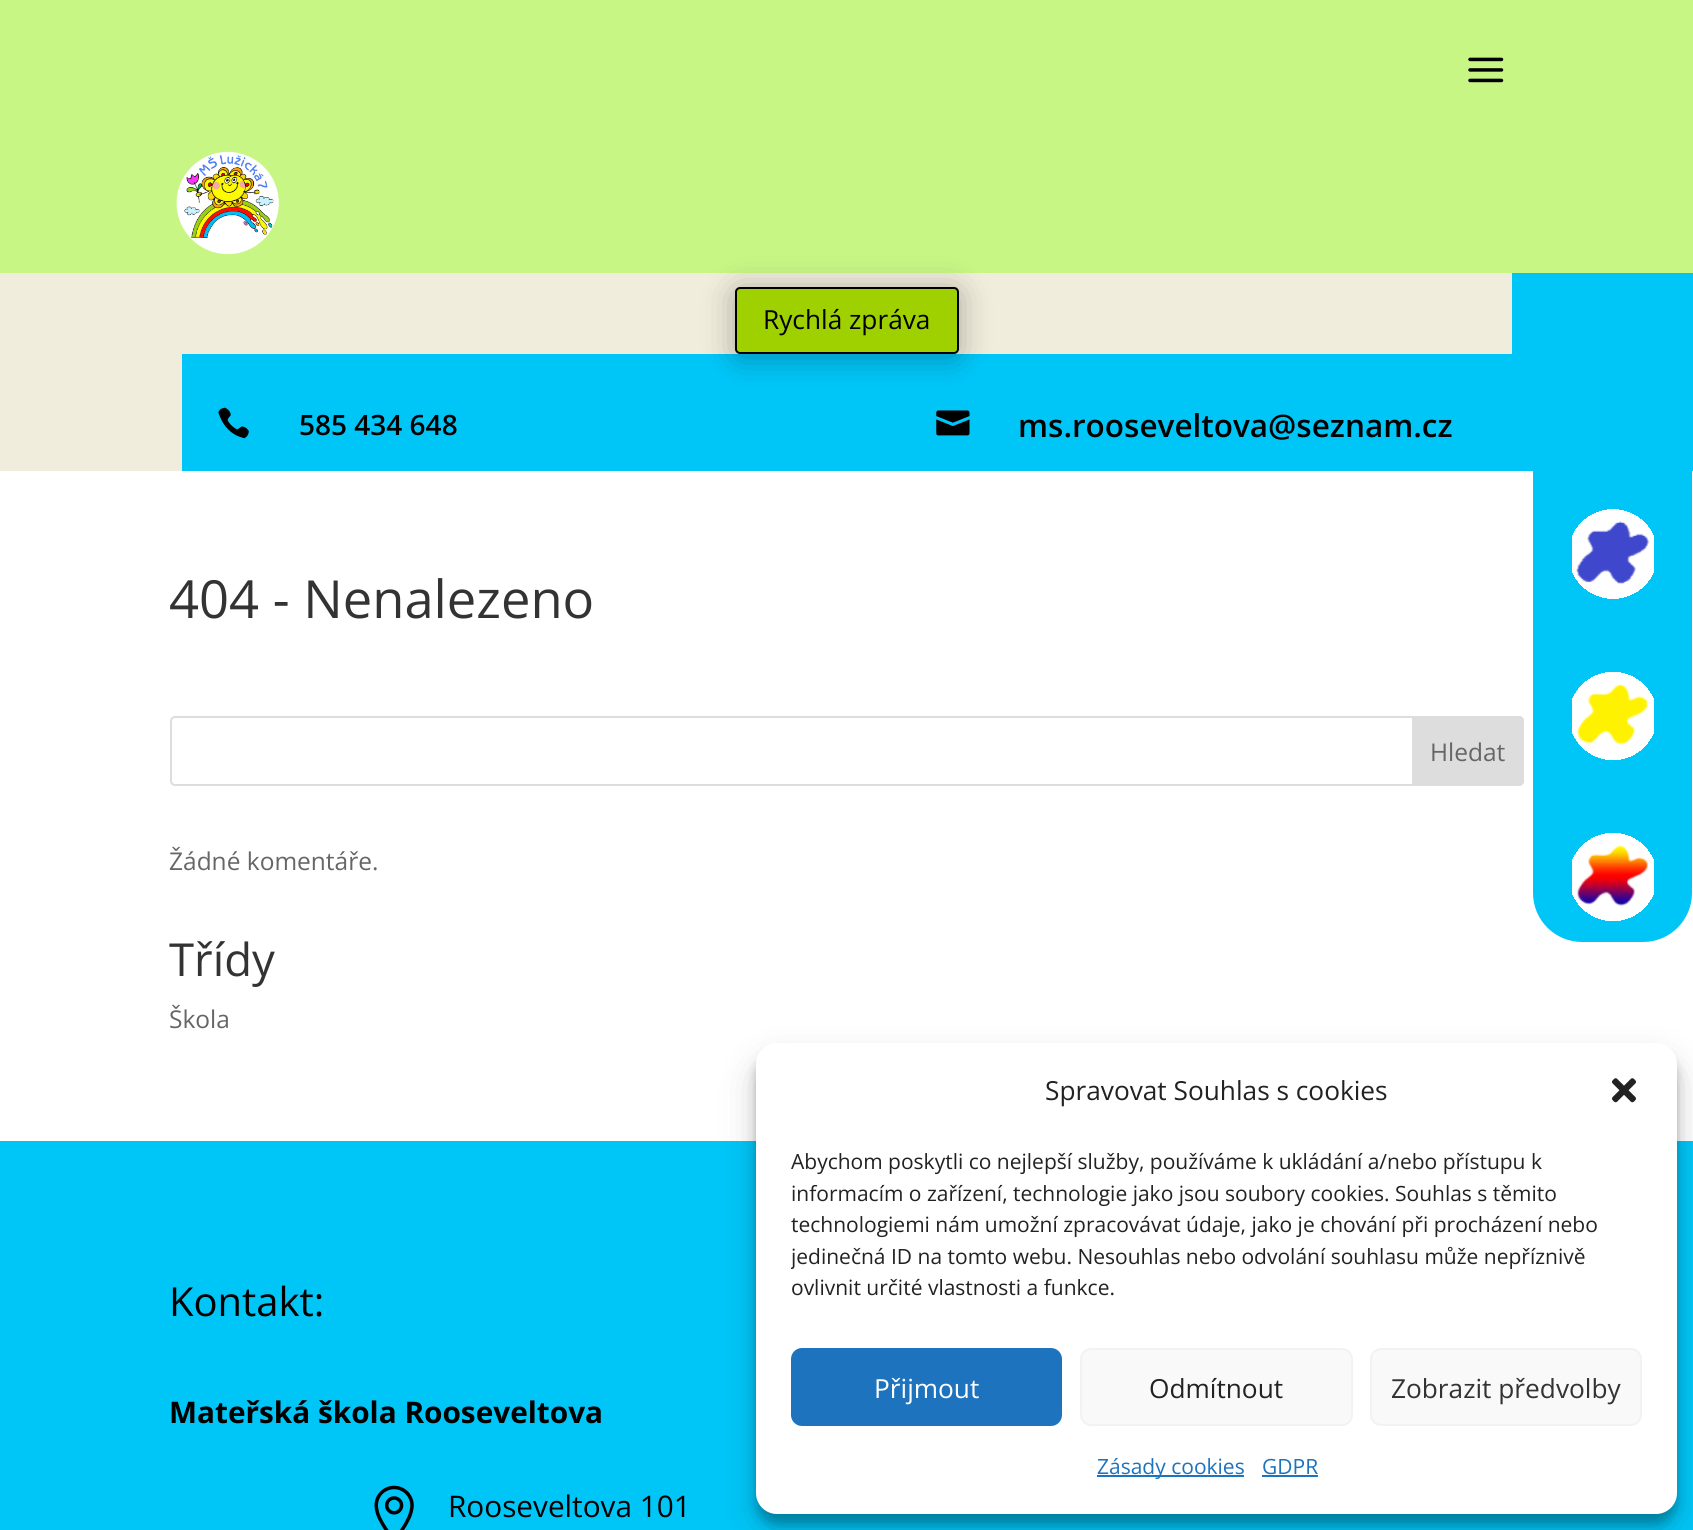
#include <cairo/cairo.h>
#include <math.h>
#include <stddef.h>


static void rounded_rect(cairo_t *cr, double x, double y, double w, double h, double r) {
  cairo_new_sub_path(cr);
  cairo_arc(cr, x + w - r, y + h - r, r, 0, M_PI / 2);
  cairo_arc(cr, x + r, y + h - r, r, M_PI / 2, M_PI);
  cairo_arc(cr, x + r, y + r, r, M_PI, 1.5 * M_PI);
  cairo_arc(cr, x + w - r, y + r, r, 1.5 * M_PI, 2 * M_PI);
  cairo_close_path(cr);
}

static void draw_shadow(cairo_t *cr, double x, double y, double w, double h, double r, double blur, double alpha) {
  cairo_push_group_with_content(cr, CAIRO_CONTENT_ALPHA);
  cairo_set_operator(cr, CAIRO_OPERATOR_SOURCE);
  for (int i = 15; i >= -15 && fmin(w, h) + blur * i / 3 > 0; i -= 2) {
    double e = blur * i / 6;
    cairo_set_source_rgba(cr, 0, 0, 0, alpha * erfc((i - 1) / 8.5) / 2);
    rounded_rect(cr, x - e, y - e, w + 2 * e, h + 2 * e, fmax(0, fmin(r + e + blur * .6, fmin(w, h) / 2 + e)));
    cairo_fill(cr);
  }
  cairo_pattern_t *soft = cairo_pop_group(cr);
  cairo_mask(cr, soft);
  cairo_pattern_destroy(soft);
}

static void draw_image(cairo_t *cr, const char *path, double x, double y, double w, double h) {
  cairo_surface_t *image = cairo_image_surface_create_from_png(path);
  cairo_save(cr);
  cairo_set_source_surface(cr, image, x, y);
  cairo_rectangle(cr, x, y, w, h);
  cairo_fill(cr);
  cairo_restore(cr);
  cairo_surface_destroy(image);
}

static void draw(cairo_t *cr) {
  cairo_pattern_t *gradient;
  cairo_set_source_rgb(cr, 1, 1, 1);
  cairo_paint(cr);
  cairo_set_source_rgb(cr, 0, 198 / 255.0, 248 / 255.0);
  rounded_rect(cr, 1533, 166, 159, 776, 49);
  cairo_fill(cr);
  cairo_set_source_rgb(cr, 199 / 255.0, 246 / 255.0, 133 / 255.0);
  cairo_rectangle(cr, 0, 0, 1693, 273);
  cairo_fill(cr);
  draw_image(cr, "images/1.png", 1468, 57, 36, 26);
  draw_image(cr, "images/2.png", 176, 151, 103, 104);
  cairo_set_source_rgb(cr, 0, 198 / 255.0, 248 / 255.0);
  cairo_rectangle(cr, 182, 273, 1511, 198);
  cairo_fill(cr);
  cairo_set_source_rgb(cr, 240 / 255.0, 237 / 255.0, 220 / 255.0);
  cairo_new_path(cr);
  cairo_move_to(cr, -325, 273);
  cairo_line_to(cr, -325, 471);
  cairo_line_to(cr, 1005, 471);
  cairo_line_to(cr, 182, 471);
  cairo_line_to(cr, 182, 273);
  cairo_close_path(cr);
  cairo_fill(cr);
  cairo_rectangle(cr, 182, 273, 1330, 81);
  cairo_fill(cr);
  cairo_set_source_rgb(cr, 0, 0, 0);
  draw_shadow(cr, 735, 291, 224, 66, 5, 16, 0.3);
  cairo_set_source_rgb(cr, 159 / 255.0, 208 / 255.0, 0);
  rounded_rect(cr, 736, 288, 222, 65, 4);
  cairo_fill_preserve(cr);
  cairo_set_source_rgb(cr, 0, 0, 0);
  cairo_stroke(cr);
  draw_image(cr, "images/3.png", 218, 407, 31, 32);
  draw_image(cr, "images/4.png", 936, 410, 34, 26);
  rounded_rect(cr, 171, 717, 1352, 68, 4);
  cairo_set_source_rgb(cr, 221 / 255.0, 221 / 255.0, 221 / 255.0);
  cairo_stroke(cr);
  cairo_new_path(cr);
  cairo_move_to(cr, 1413, 717);
  cairo_line_to(cr, 1519, 717);
  cairo_curve_to(cr, 1521, 717, 1523, 719, 1523, 721);
  cairo_line_to(cr, 1523, 781);
  cairo_curve_to(cr, 1523, 783, 1521, 785, 1519, 785);
  cairo_line_to(cr, 1413, 785);
  cairo_close_path(cr);
  cairo_fill_preserve(cr);
  cairo_stroke(cr);
  cairo_set_source_rgb(cr, 0, 198 / 255.0, 248 / 255.0);
  cairo_rectangle(cr, 0, 1141, 1693, 389);
  cairo_fill(cr);
  gradient = cairo_pattern_create_radial(1613, 554, 0, 1613, 554, 69);
  cairo_pattern_add_color_stop_rgba(gradient, 0.65, 1, 1, 1, 1);
  cairo_pattern_add_color_stop_rgba(gradient, 0.65, 0, 198 / 255.0, 248 / 255.0, 1);
  cairo_set_source(cr, gradient);
  cairo_pattern_destroy(gradient);
  cairo_rectangle(cr, 1572, 509, 82, 90);
  cairo_fill(cr);
  draw_image(cr, "images/5.png", 1576, 520, 74, 64);
  gradient = cairo_pattern_create_radial(1613, 716, 0, 1613, 716, 68);
  cairo_pattern_add_color_stop_rgba(gradient, 0.65, 1, 1, 1, 1);
  cairo_pattern_add_color_stop_rgba(gradient, 0.65, 0, 198 / 255.0, 248 / 255.0, 1);
  cairo_set_source(cr, gradient);
  cairo_pattern_destroy(gradient);
  cairo_rectangle(cr, 1572, 672, 82, 88);
  cairo_fill(cr);
  draw_image(cr, "images/6.png", 1577, 684, 71, 61);
  gradient = cairo_pattern_create_radial(1613, 877, 0, 1613, 877, 68);
  cairo_pattern_add_color_stop_rgba(gradient, 0.65, 1, 1, 1, 1);
  cairo_pattern_add_color_stop_rgba(gradient, 0.65, 0, 198 / 255.0, 248 / 255.0, 1);
  cairo_set_source(cr, gradient);
  cairo_pattern_destroy(gradient);
  cairo_rectangle(cr, 1572, 833, 82, 88);
  cairo_fill(cr);
  draw_image(cr, "images/7.png", 1577, 845, 71, 61);
  draw_image(cr, "images/8.png", 374, 1485, 40, 45);
  cairo_set_source_rgb(cr, 0, 0, 0);
  draw_shadow(cr, 756, 1054, 921, 470, 21, 5, 0.23);
  draw_shadow(cr, 756, 1061, 921, 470, 21, 17.5, 0.19);
  cairo_set_source_rgb(cr, 1, 1, 1);
  rounded_rect(cr, 756, 1043, 921, 471, 21);
  cairo_fill(cr);
  draw_image(cr, "images/9.png", 1612, 1078, 24, 25);
  cairo_set_source_rgb(cr, 30 / 255.0, 115 / 255.0, 190 / 255.0);
  rounded_rect(cr, 792, 1349, 269, 76, 10);
  cairo_fill_preserve(cr);
  cairo_stroke(cr);
  cairo_set_source_rgb(cr, 249 / 255.0, 249 / 255.0, 249 / 255.0);
  rounded_rect(cr, 1081, 1349, 271, 76, 10);
  cairo_fill_preserve(cr);
  cairo_set_source_rgb(cr, 242 / 255.0, 242 / 255.0, 242 / 255.0);
  cairo_stroke(cr);
  cairo_set_source_rgb(cr, 249 / 255.0, 249 / 255.0, 249 / 255.0);
  rounded_rect(cr, 1371, 1349, 270, 76, 10);
  cairo_fill_preserve(cr);
  cairo_set_source_rgb(cr, 242 / 255.0, 242 / 255.0, 242 / 255.0);
  cairo_stroke(cr);
  cairo_set_source_rgb(cr, 30 / 255.0, 115 / 255.0, 190 / 255.0);
  cairo_rectangle(cr, 1097, 1475, 147, 2);
  cairo_fill(cr);
  cairo_rectangle(cr, 1262, 1475, 56, 2);
  cairo_fill(cr);
  cairo_select_font_face(cr, "Open Sans", CAIRO_FONT_SLANT_NORMAL, CAIRO_FONT_WEIGHT_NORMAL);
  cairo_set_font_size(cr, 26.25);
  cairo_set_source_rgb(cr, 0, 0, 0);
  cairo_move_to(cr, 763, 329);
  cairo_show_text(cr, "Rychlá zpráva");
  cairo_select_font_face(cr, "Open Sans SemiBold", CAIRO_FONT_SLANT_NORMAL, CAIRO_FONT_WEIGHT_NORMAL);
  cairo_set_font_size(cr, 28);
  cairo_move_to(cr, 299, 435);
  cairo_show_text(cr, "585 434 648");
  cairo_set_font_size(cr, 31.5);
  cairo_move_to(cr, 1018, 437);
  cairo_show_text(cr, "ms.rooseveltova@seznam.cz");
  cairo_select_font_face(cr, "Open Sans", CAIRO_FONT_SLANT_NORMAL, CAIRO_FONT_WEIGHT_NORMAL);
  cairo_set_font_size(cr, 52.5);
  cairo_set_source_rgb(cr, 51 / 255.0, 51 / 255.0, 51 / 255.0);
  cairo_move_to(cr, 169, 618);
  cairo_show_text(cr, "404 - Nenalezeno");
  cairo_set_font_size(cr, 24.5);
  cairo_set_source_rgb(cr, 102 / 255.0, 102 / 255.0, 102 / 255.0);
  cairo_move_to(cr, 1430, 761);
  cairo_show_text(cr, "Hledat");
  cairo_move_to(cr, 169, 870);
  cairo_show_text(cr, "Žádné komentáře.");
  cairo_set_font_size(cr, 45.5);
  cairo_set_source_rgb(cr, 51 / 255.0, 51 / 255.0, 51 / 255.0);
  cairo_move_to(cr, 169, 976);
  cairo_show_text(cr, "Třídy");
  cairo_set_font_size(cr, 24.5);
  cairo_set_source_rgb(cr, 102 / 255.0, 102 / 255.0, 102 / 255.0);
  cairo_move_to(cr, 169, 1028);
  cairo_show_text(cr, "Škola");
  cairo_set_font_size(cr, 40);
  cairo_set_source_rgb(cr, 0, 0, 0);
  cairo_move_to(cr, 169, 1316);
  cairo_show_text(cr, "Kontakt:");
  cairo_select_font_face(cr, "Open Sans", CAIRO_FONT_SLANT_NORMAL, CAIRO_FONT_WEIGHT_BOLD);
  cairo_set_font_size(cr, 29.75);
  cairo_move_to(cr, 169, 1423);
  cairo_show_text(cr, "Mateřská škola Rooseveltova");
  cairo_select_font_face(cr, "Open Sans", CAIRO_FONT_SLANT_NORMAL, CAIRO_FONT_WEIGHT_NORMAL);
  cairo_move_to(cr, 448, 1517);
  cairo_show_text(cr, "Rooseveltova 101");
  cairo_set_font_size(cr, 26.25);
  cairo_set_source_rgb(cr, 34 / 255.0, 34 / 255.0, 34 / 255.0);
  cairo_move_to(cr, 1045, 1100);
  cairo_show_text(cr, "Spravovat Souhlas s cookies");
  cairo_set_font_size(cr, 21);
  cairo_move_to(cr, 791, 1169);
  cairo_show_text(cr, "Abychom poskytli co nejlepší služby, používáme k ukládání a/nebo přístupu k");
  cairo_move_to(cr, 791, 1201);
  cairo_show_text(cr, "informacím o zařízení, technologie jako jsou soubory cookies. Souhlas s těmito");
  cairo_move_to(cr, 791, 1232);
  cairo_show_text(cr, "technologiemi nám umožní zpracovávat údaje, jako je chování při procházení nebo");
  cairo_save(cr);
  cairo_rectangle(cr, 791, 1146, 851, 167);
  cairo_clip(cr);
  cairo_move_to(cr, 791, 1264);
  cairo_show_text(cr, "jedinečná ID na tomto webu. Nesouhlas nebo odvolání souhlasu může nepříznivě");
  cairo_restore(cr);
  cairo_move_to(cr, 791, 1295);
  cairo_show_text(cr, "ovlivnit určité vlastnosti a funkce.");
  cairo_set_font_size(cr, 26.25);
  cairo_set_source_rgb(cr, 1, 1, 1);
  cairo_move_to(cr, 874, 1398);
  cairo_show_text(cr, "Přijmout");
  cairo_set_source_rgb(cr, 34 / 255.0, 34 / 255.0, 34 / 255.0);
  cairo_move_to(cr, 1149, 1398);
  cairo_show_text(cr, "Odmítnout");
  cairo_set_source_rgb(cr, 51 / 255.0, 51 / 255.0, 51 / 255.0);
  cairo_move_to(cr, 1391, 1398);
  cairo_show_text(cr, "Zobrazit předvolby");
  cairo_set_font_size(cr, 21);
  cairo_set_source_rgb(cr, 30 / 255.0, 115 / 255.0, 190 / 255.0);
  cairo_move_to(cr, 1097, 1474);
  cairo_show_text(cr, "Zásady cookies");
  cairo_move_to(cr, 1262, 1474);
  cairo_show_text(cr, "GDPR");
}

int main(void) {
  cairo_surface_t *surface = cairo_image_surface_create(CAIRO_FORMAT_RGB24, 1693, 1530);
  cairo_t *cr = cairo_create(surface);
  cairo_font_options_t *options = cairo_font_options_create();
  cairo_font_options_set_hint_metrics(options, CAIRO_HINT_METRICS_OFF);
  cairo_font_options_set_hint_style(options, CAIRO_HINT_STYLE_NONE);
  cairo_set_font_options(cr, options);
  cairo_set_miter_limit(cr, 4);
  draw(cr);
  cairo_surface_write_to_png(surface, "out.png");
  cairo_font_options_destroy(options);
  cairo_destroy(cr);
  cairo_surface_destroy(surface);
  return 0;
}
